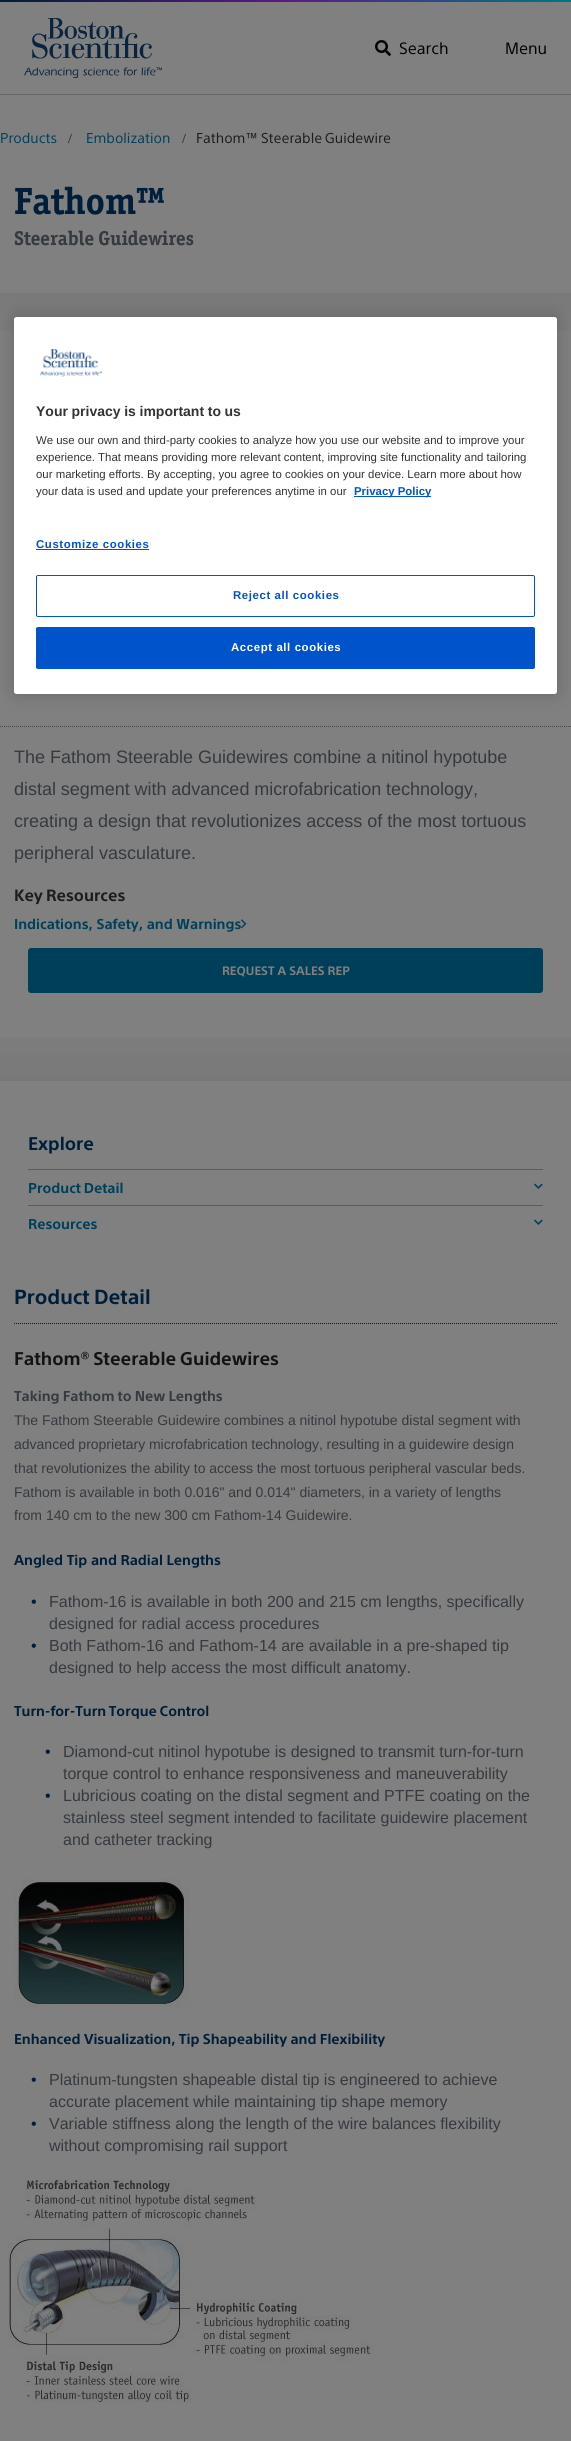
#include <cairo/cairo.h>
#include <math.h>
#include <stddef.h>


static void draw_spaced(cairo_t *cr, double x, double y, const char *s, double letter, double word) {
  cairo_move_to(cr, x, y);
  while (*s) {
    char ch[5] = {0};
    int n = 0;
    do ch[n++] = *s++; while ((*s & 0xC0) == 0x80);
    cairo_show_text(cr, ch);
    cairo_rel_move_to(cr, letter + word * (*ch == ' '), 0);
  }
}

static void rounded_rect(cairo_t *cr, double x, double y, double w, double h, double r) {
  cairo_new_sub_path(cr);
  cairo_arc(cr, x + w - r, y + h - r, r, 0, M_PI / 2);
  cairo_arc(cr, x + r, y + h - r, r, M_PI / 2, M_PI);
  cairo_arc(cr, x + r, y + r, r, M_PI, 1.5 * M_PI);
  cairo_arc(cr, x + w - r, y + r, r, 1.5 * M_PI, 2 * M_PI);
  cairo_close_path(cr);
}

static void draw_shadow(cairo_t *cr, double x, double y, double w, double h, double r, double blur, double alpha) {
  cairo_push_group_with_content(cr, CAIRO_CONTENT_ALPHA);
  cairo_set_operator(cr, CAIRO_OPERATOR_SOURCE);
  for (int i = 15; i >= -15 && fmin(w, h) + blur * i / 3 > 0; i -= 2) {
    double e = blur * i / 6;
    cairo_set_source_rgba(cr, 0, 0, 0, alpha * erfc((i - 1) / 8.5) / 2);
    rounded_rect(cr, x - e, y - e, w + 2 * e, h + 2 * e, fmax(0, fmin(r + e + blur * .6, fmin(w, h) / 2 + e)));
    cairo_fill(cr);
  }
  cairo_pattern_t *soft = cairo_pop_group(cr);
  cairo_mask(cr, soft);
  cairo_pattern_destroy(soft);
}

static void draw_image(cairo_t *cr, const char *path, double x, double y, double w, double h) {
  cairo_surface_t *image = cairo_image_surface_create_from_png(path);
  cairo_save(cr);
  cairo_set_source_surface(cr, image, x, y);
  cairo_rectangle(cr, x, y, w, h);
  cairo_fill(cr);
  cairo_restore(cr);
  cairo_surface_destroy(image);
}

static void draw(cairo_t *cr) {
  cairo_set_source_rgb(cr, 128 / 255.0, 128 / 255.0, 128 / 255.0);
  cairo_paint(cr);
  draw_image(cr, "images/1.png", 0, 0, 571, 2);
  cairo_set_source_rgb(cr, 102 / 255.0, 102 / 255.0, 102 / 255.0);
  cairo_rectangle(cr, 0, 94, 571, 1);
  cairo_fill(cr);
  draw_image(cr, "images/2.png", 24, 18, 138, 60);
  draw_image(cr, "images/3.png", 375, 40, 16, 16);
  draw_image(cr, "images/4.png", 0, 293, 571, 38);
  cairo_new_path(cr);
  cairo_move_to(cr, 0, 726.5);
  cairo_line_to(cr, 571, 726.5);
  cairo_set_source_rgb(cr, 68 / 255.0, 71 / 255.0, 75 / 255.0);
  cairo_set_line_width(cr, 1);
  cairo_set_dash(cr, (double[]){1, 1}, 2, 0);
  cairo_stroke(cr);
  draw_image(cr, "images/5.png", 241, 919, 6, 10);
  cairo_set_source_rgb(cr, 0, 63 / 255.0, 90 / 255.0);
  rounded_rect(cr, 28, 948, 515, 45, 3);
  cairo_fill(cr);
  draw_image(cr, "images/6.png", 0, 1037, 571, 44);
  cairo_set_source_rgb(cr, 90 / 255.0, 93 / 255.0, 95 / 255.0);
  cairo_rectangle(cr, 28, 1169, 515, 1);
  cairo_fill(cr);
  draw_image(cr, "images/7.png", 534, 1183, 9, 6);
  cairo_rectangle(cr, 28, 1205, 515, 1);
  cairo_fill(cr);
  draw_image(cr, "images/7.png", 534, 1219, 9, 6);
  cairo_new_path(cr);
  cairo_move_to(cr, 14, 1323.5);
  cairo_line_to(cr, 557, 1323.5);
  cairo_set_source_rgb(cr, 0, 30 / 255.0, 57 / 255.0);
  cairo_stroke(cr);
  draw_image(cr, "images/8.png", 14, 1879, 175, 128);
  draw_image(cr, "images/9.png", 8, 2179, 368, 224);
  cairo_set_source_rgb(cr, 0, 0, 0);
  draw_shadow(cr, 14, 317, 543, 377, 2.5, 9, 0.2);
  cairo_set_source_rgb(cr, 1, 1, 1);
  rounded_rect(cr, 14, 317, 543, 377, 2.5);
  cairo_fill(cr);
  draw_image(cr, "images/10.png", 40, 349, 62, 28);
  cairo_set_source_rgb(cr, 1 / 255.0, 83 / 255.0, 204 / 255.0);
  cairo_rectangle(cr, 354, 496, 77, 1);
  cairo_fill(cr);
  cairo_rectangle(cr, 36, 549, 113, 1);
  cairo_fill(cr);
  rounded_rect(cr, 36.5, 575.5, 498, 41, 1.5);
  cairo_set_dash(cr, NULL, 0, 0);
  cairo_stroke(cr);
  rounded_rect(cr, 36.5, 627.5, 498, 41, 1.5);
  cairo_fill_preserve(cr);
  cairo_stroke(cr);
  cairo_select_font_face(cr, "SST", CAIRO_FONT_SLANT_NORMAL, CAIRO_FONT_WEIGHT_NORMAL);
  cairo_set_font_size(cr, 16);
  cairo_set_source_rgb(cr, 0, 0, 0);
  cairo_move_to(cr, 399, 54);
  cairo_show_text(cr, "Search");
  cairo_move_to(cr, 505, 54);
  cairo_show_text(cr, "Menu");
  cairo_set_font_size(cr, 14);
  cairo_set_source_rgb(cr, 0, 63 / 255.0, 90 / 255.0);
  cairo_move_to(cr, 0, 143);
  cairo_show_text(cr, "Products");
  cairo_select_font_face(cr, "Liberation Serif", CAIRO_FONT_SLANT_NORMAL, CAIRO_FONT_WEIGHT_BOLD);
  cairo_set_source_rgb(cr, 53 / 255.0, 58 / 255.0, 62 / 255.0);
  cairo_move_to(cr, 68, 143);
  cairo_show_text(cr, "/");
  cairo_select_font_face(cr, "SST", CAIRO_FONT_SLANT_NORMAL, CAIRO_FONT_WEIGHT_NORMAL);
  cairo_set_source_rgb(cr, 0, 63 / 255.0, 90 / 255.0);
  cairo_move_to(cr, 86, 143);
  cairo_show_text(cr, "Embolization");
  cairo_select_font_face(cr, "Liberation Serif", CAIRO_FONT_SLANT_NORMAL, CAIRO_FONT_WEIGHT_BOLD);
  cairo_set_source_rgb(cr, 53 / 255.0, 58 / 255.0, 62 / 255.0);
  cairo_move_to(cr, 182, 143);
  cairo_show_text(cr, "/");
  cairo_select_font_face(cr, "SST", CAIRO_FONT_SLANT_NORMAL, CAIRO_FONT_WEIGHT_NORMAL);
  cairo_set_source_rgb(cr, 28 / 255.0, 28 / 255.0, 28 / 255.0);
  draw_spaced(cr, 196, 143, "Fathom™ Steerable Guidewire", 0, -1);
  cairo_select_font_face(cr, "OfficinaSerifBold", CAIRO_FONT_SLANT_NORMAL, CAIRO_FONT_WEIGHT_BOLD);
  cairo_set_font_size(cr, 38);
  cairo_set_source_rgb(cr, 0, 30 / 255.0, 57 / 255.0);
  cairo_move_to(cr, 14, 214);
  cairo_show_text(cr, "Fathom™");
  cairo_set_font_size(cr, 20);
  cairo_set_source_rgb(cr, 53 / 255.0, 58 / 255.0, 62 / 255.0);
  cairo_move_to(cr, 14, 245);
  cairo_show_text(cr, "Steerable Guidewires");
  cairo_select_font_face(cr, "Liberation Sans", CAIRO_FONT_SLANT_NORMAL, CAIRO_FONT_WEIGHT_NORMAL);
  cairo_set_font_size(cr, 18);
  cairo_move_to(cr, 14, 763);
  cairo_show_text(cr, "The Fathom Steerable Guidewires combine a nitinol hypotube");
  draw_spaced(cr, 14, 795, "distal segment with advanced microfabrication technology,", 0, -0.25);
  cairo_move_to(cr, 14, 827);
  cairo_show_text(cr, "creating a design that revolutionizes access of the most tortuous");
  cairo_move_to(cr, 14, 859);
  cairo_show_text(cr, "peripheral vasculature.");
  cairo_select_font_face(cr, "SST", CAIRO_FONT_SLANT_NORMAL, CAIRO_FONT_WEIGHT_BOLD);
  cairo_set_font_size(cr, 16);
  cairo_set_source_rgb(cr, 28 / 255.0, 28 / 255.0, 28 / 255.0);
  draw_spaced(cr, 14, 901, "Key Resources", 0, -1);
  cairo_set_font_size(cr, 14);
  cairo_set_source_rgb(cr, 0, 63 / 255.0, 90 / 255.0);
  cairo_move_to(cr, 14, 929);
  cairo_show_text(cr, "Indications, Safety, and Warnings");
  cairo_set_font_size(cr, 12);
  cairo_set_source_rgb(cr, 128 / 255.0, 128 / 255.0, 128 / 255.0);
  cairo_move_to(cr, 222, 975);
  cairo_show_text(cr, "REQUEST A SALES REP");
  cairo_set_font_size(cr, 18);
  cairo_set_source_rgb(cr, 0, 30 / 255.0, 57 / 255.0);
  cairo_move_to(cr, 28, 1150);
  cairo_show_text(cr, "Explore");
  cairo_set_font_size(cr, 14);
  cairo_set_source_rgb(cr, 0, 63 / 255.0, 90 / 255.0);
  draw_spaced(cr, 28, 1193, "Product Detail", 0, -1);
  cairo_move_to(cr, 28, 1229);
  cairo_show_text(cr, "Resources");
  cairo_set_font_size(cr, 20);
  cairo_set_source_rgb(cr, 0, 30 / 255.0, 57 / 255.0);
  draw_spaced(cr, 14, 1304, "Product Detail", 0, -1);
  cairo_set_font_size(cr, 18);
  cairo_set_source_rgb(cr, 18 / 255.0, 19 / 255.0, 19 / 255.0);
  draw_spaced(cr, 14, 1365, "Fathom® Steerable Guidewires", 0, -1);
  cairo_set_font_size(cr, 14);
  cairo_set_source_rgb(cr, 53 / 255.0, 58 / 255.0, 62 / 255.0);
  draw_spaced(cr, 14, 1401, "Taking Fathom to New Lengths", 0, -0.5);
  cairo_select_font_face(cr, "Liberation Sans", CAIRO_FONT_SLANT_NORMAL, CAIRO_FONT_WEIGHT_NORMAL);
  cairo_move_to(cr, 14, 1425);
  cairo_show_text(cr, "The Fathom Steerable Guidewire combines a nitinol hypotube distal segment with");
  draw_spaced(cr, 14, 1449, "advanced proprietary microfabrication technology, resulting in a guidewire design", 0, -0.25);
  cairo_move_to(cr, 14, 1473);
  cairo_show_text(cr, "that revolutionizes the ability to access the most tortuous peripheral vascular beds.");
  cairo_move_to(cr, 14, 1497);
  cairo_show_text(cr, "Fathom is available in both 0.016\" and 0.014\" diameters, in a variety of lengths");
  cairo_move_to(cr, 14, 1520);
  cairo_show_text(cr, "from 140 cm to the new 300 cm Fathom-14 Guidewire.");
  cairo_select_font_face(cr, "SST", CAIRO_FONT_SLANT_NORMAL, CAIRO_FONT_WEIGHT_BOLD);
  cairo_set_source_rgb(cr, 0, 30 / 255.0, 57 / 255.0);
  cairo_move_to(cr, 14, 1565);
  cairo_show_text(cr, "Angled Tip and Radial Lengths");
  cairo_select_font_face(cr, "Liberation Sans", CAIRO_FONT_SLANT_NORMAL, CAIRO_FONT_WEIGHT_NORMAL);
  cairo_set_font_size(cr, 16);
  cairo_move_to(cr, 31, 1607);
  cairo_show_text(cr, "•");
  cairo_set_source_rgb(cr, 53 / 255.0, 58 / 255.0, 62 / 255.0);
  cairo_move_to(cr, 49, 1607);
  cairo_show_text(cr, "Fathom-16 is available in both 200 and 215 cm lengths, specifically");
  cairo_move_to(cr, 49, 1629);
  cairo_show_text(cr, "designed for radial access procedures");
  cairo_set_source_rgb(cr, 0, 30 / 255.0, 57 / 255.0);
  cairo_move_to(cr, 31, 1651);
  cairo_show_text(cr, "•");
  cairo_set_source_rgb(cr, 53 / 255.0, 58 / 255.0, 62 / 255.0);
  cairo_move_to(cr, 49, 1651);
  cairo_show_text(cr, "Both Fathom-16 and Fathom-14 are available in a pre-shaped tip");
  cairo_move_to(cr, 49, 1673);
  cairo_show_text(cr, "designed to help access the most difficult anatomy.");
  cairo_select_font_face(cr, "SST", CAIRO_FONT_SLANT_NORMAL, CAIRO_FONT_WEIGHT_BOLD);
  cairo_set_font_size(cr, 14);
  cairo_set_source_rgb(cr, 0, 30 / 255.0, 57 / 255.0);
  draw_spaced(cr, 14, 1716, "Turn-for-Turn Torque Control", 0, -1);
  cairo_select_font_face(cr, "Liberation Sans", CAIRO_FONT_SLANT_NORMAL, CAIRO_FONT_WEIGHT_NORMAL);
  cairo_set_font_size(cr, 16);
  cairo_move_to(cr, 45, 1757);
  cairo_show_text(cr, "•");
  cairo_set_source_rgb(cr, 53 / 255.0, 58 / 255.0, 62 / 255.0);
  cairo_move_to(cr, 63, 1757);
  cairo_show_text(cr, "Diamond-cut nitinol hypotube is designed to transmit turn-for-turn");
  cairo_move_to(cr, 63, 1779);
  cairo_show_text(cr, "torque control to enhance responsiveness and maneuverability");
  cairo_set_source_rgb(cr, 0, 30 / 255.0, 57 / 255.0);
  cairo_move_to(cr, 45, 1801);
  cairo_show_text(cr, "•");
  cairo_set_source_rgb(cr, 53 / 255.0, 58 / 255.0, 62 / 255.0);
  cairo_move_to(cr, 63, 1801);
  cairo_show_text(cr, "Lubricious coating on the distal segment and PTFE coating on the");
  cairo_move_to(cr, 63, 1823);
  cairo_show_text(cr, "stainless steel segment intended to facilitate guidewire placement");
  cairo_move_to(cr, 63, 1845);
  cairo_show_text(cr, "and catheter tracking");
  cairo_select_font_face(cr, "SST", CAIRO_FONT_SLANT_NORMAL, CAIRO_FONT_WEIGHT_BOLD);
  cairo_set_font_size(cr, 14);
  cairo_set_source_rgb(cr, 0, 30 / 255.0, 57 / 255.0);
  draw_spaced(cr, 14, 2044, "Enhanced Visualization, Tip Shapeability and Flexibility", 0, -0.25);
  cairo_select_font_face(cr, "Liberation Sans", CAIRO_FONT_SLANT_NORMAL, CAIRO_FONT_WEIGHT_NORMAL);
  cairo_set_font_size(cr, 16);
  cairo_move_to(cr, 31, 2085);
  cairo_show_text(cr, "•");
  cairo_set_source_rgb(cr, 53 / 255.0, 58 / 255.0, 62 / 255.0);
  cairo_move_to(cr, 49, 2085);
  cairo_show_text(cr, "Platinum-tungsten shapeable distal tip is engineered to achieve");
  cairo_move_to(cr, 49, 2107);
  cairo_show_text(cr, "accurate placement while maintaining tip shape memory");
  cairo_set_source_rgb(cr, 0, 30 / 255.0, 57 / 255.0);
  cairo_move_to(cr, 31, 2129);
  cairo_show_text(cr, "•");
  cairo_set_source_rgb(cr, 53 / 255.0, 58 / 255.0, 62 / 255.0);
  cairo_move_to(cr, 49, 2129);
  cairo_show_text(cr, "Variable stiffness along the length of the wire balances flexibility");
  cairo_move_to(cr, 49, 2151);
  cairo_show_text(cr, "without compromising rail support");
  cairo_select_font_face(cr, "Liberation Sans", CAIRO_FONT_SLANT_NORMAL, CAIRO_FONT_WEIGHT_BOLD);
  cairo_set_font_size(cr, 14);
  cairo_set_source_rgb(cr, 51 / 255.0, 51 / 255.0, 51 / 255.0);
  draw_spaced(cr, 36, 416, "Your privacy is important to us", 0, -0.25);
  cairo_select_font_face(cr, "Liberation Sans", CAIRO_FONT_SLANT_NORMAL, CAIRO_FONT_WEIGHT_NORMAL);
  cairo_set_font_size(cr, 11.4);
  cairo_move_to(cr, 36, 444);
  cairo_show_text(cr, "We use our own and third-party cookies to analyze how you use our website and to improve your");
  cairo_move_to(cr, 36, 461);
  cairo_show_text(cr, "experience. That means providing more relevant content, improving site functionality and tailoring");
  cairo_move_to(cr, 36, 478);
  cairo_show_text(cr, "our marketing efforts. By accepting, you agree to cookies on your device. Learn more about how");
  cairo_move_to(cr, 36, 495);
  cairo_show_text(cr, "your data is used and update your preferences anytime in our");
  cairo_select_font_face(cr, "Liberation Sans", CAIRO_FONT_SLANT_NORMAL, CAIRO_FONT_WEIGHT_BOLD);
  cairo_set_source_rgb(cr, 1 / 255.0, 83 / 255.0, 204 / 255.0);
  cairo_move_to(cr, 354, 495);
  cairo_show_text(cr, "Privacy Policy");
  draw_spaced(cr, 36, 548, "Customize cookies", 0.6, 0);
  draw_spaced(cr, 233, 599, "Reject all cookies", 0.6, 0);
  cairo_set_source_rgb(cr, 1, 1, 1);
  draw_spaced(cr, 231, 651, "Accept all cookies", 0.6, 0);
}

int main(void) {
  cairo_surface_t *surface = cairo_image_surface_create(CAIRO_FORMAT_RGB24, 571, 2441);
  cairo_t *cr = cairo_create(surface);
  cairo_font_options_t *options = cairo_font_options_create();
  cairo_font_options_set_hint_metrics(options, CAIRO_HINT_METRICS_OFF);
  cairo_font_options_set_hint_style(options, CAIRO_HINT_STYLE_NONE);
  cairo_set_font_options(cr, options);
  cairo_set_miter_limit(cr, 4);
  draw(cr);
  cairo_surface_write_to_png(surface, "out.png");
  cairo_font_options_destroy(options);
  cairo_destroy(cr);
  cairo_surface_destroy(surface);
  return 0;
}
